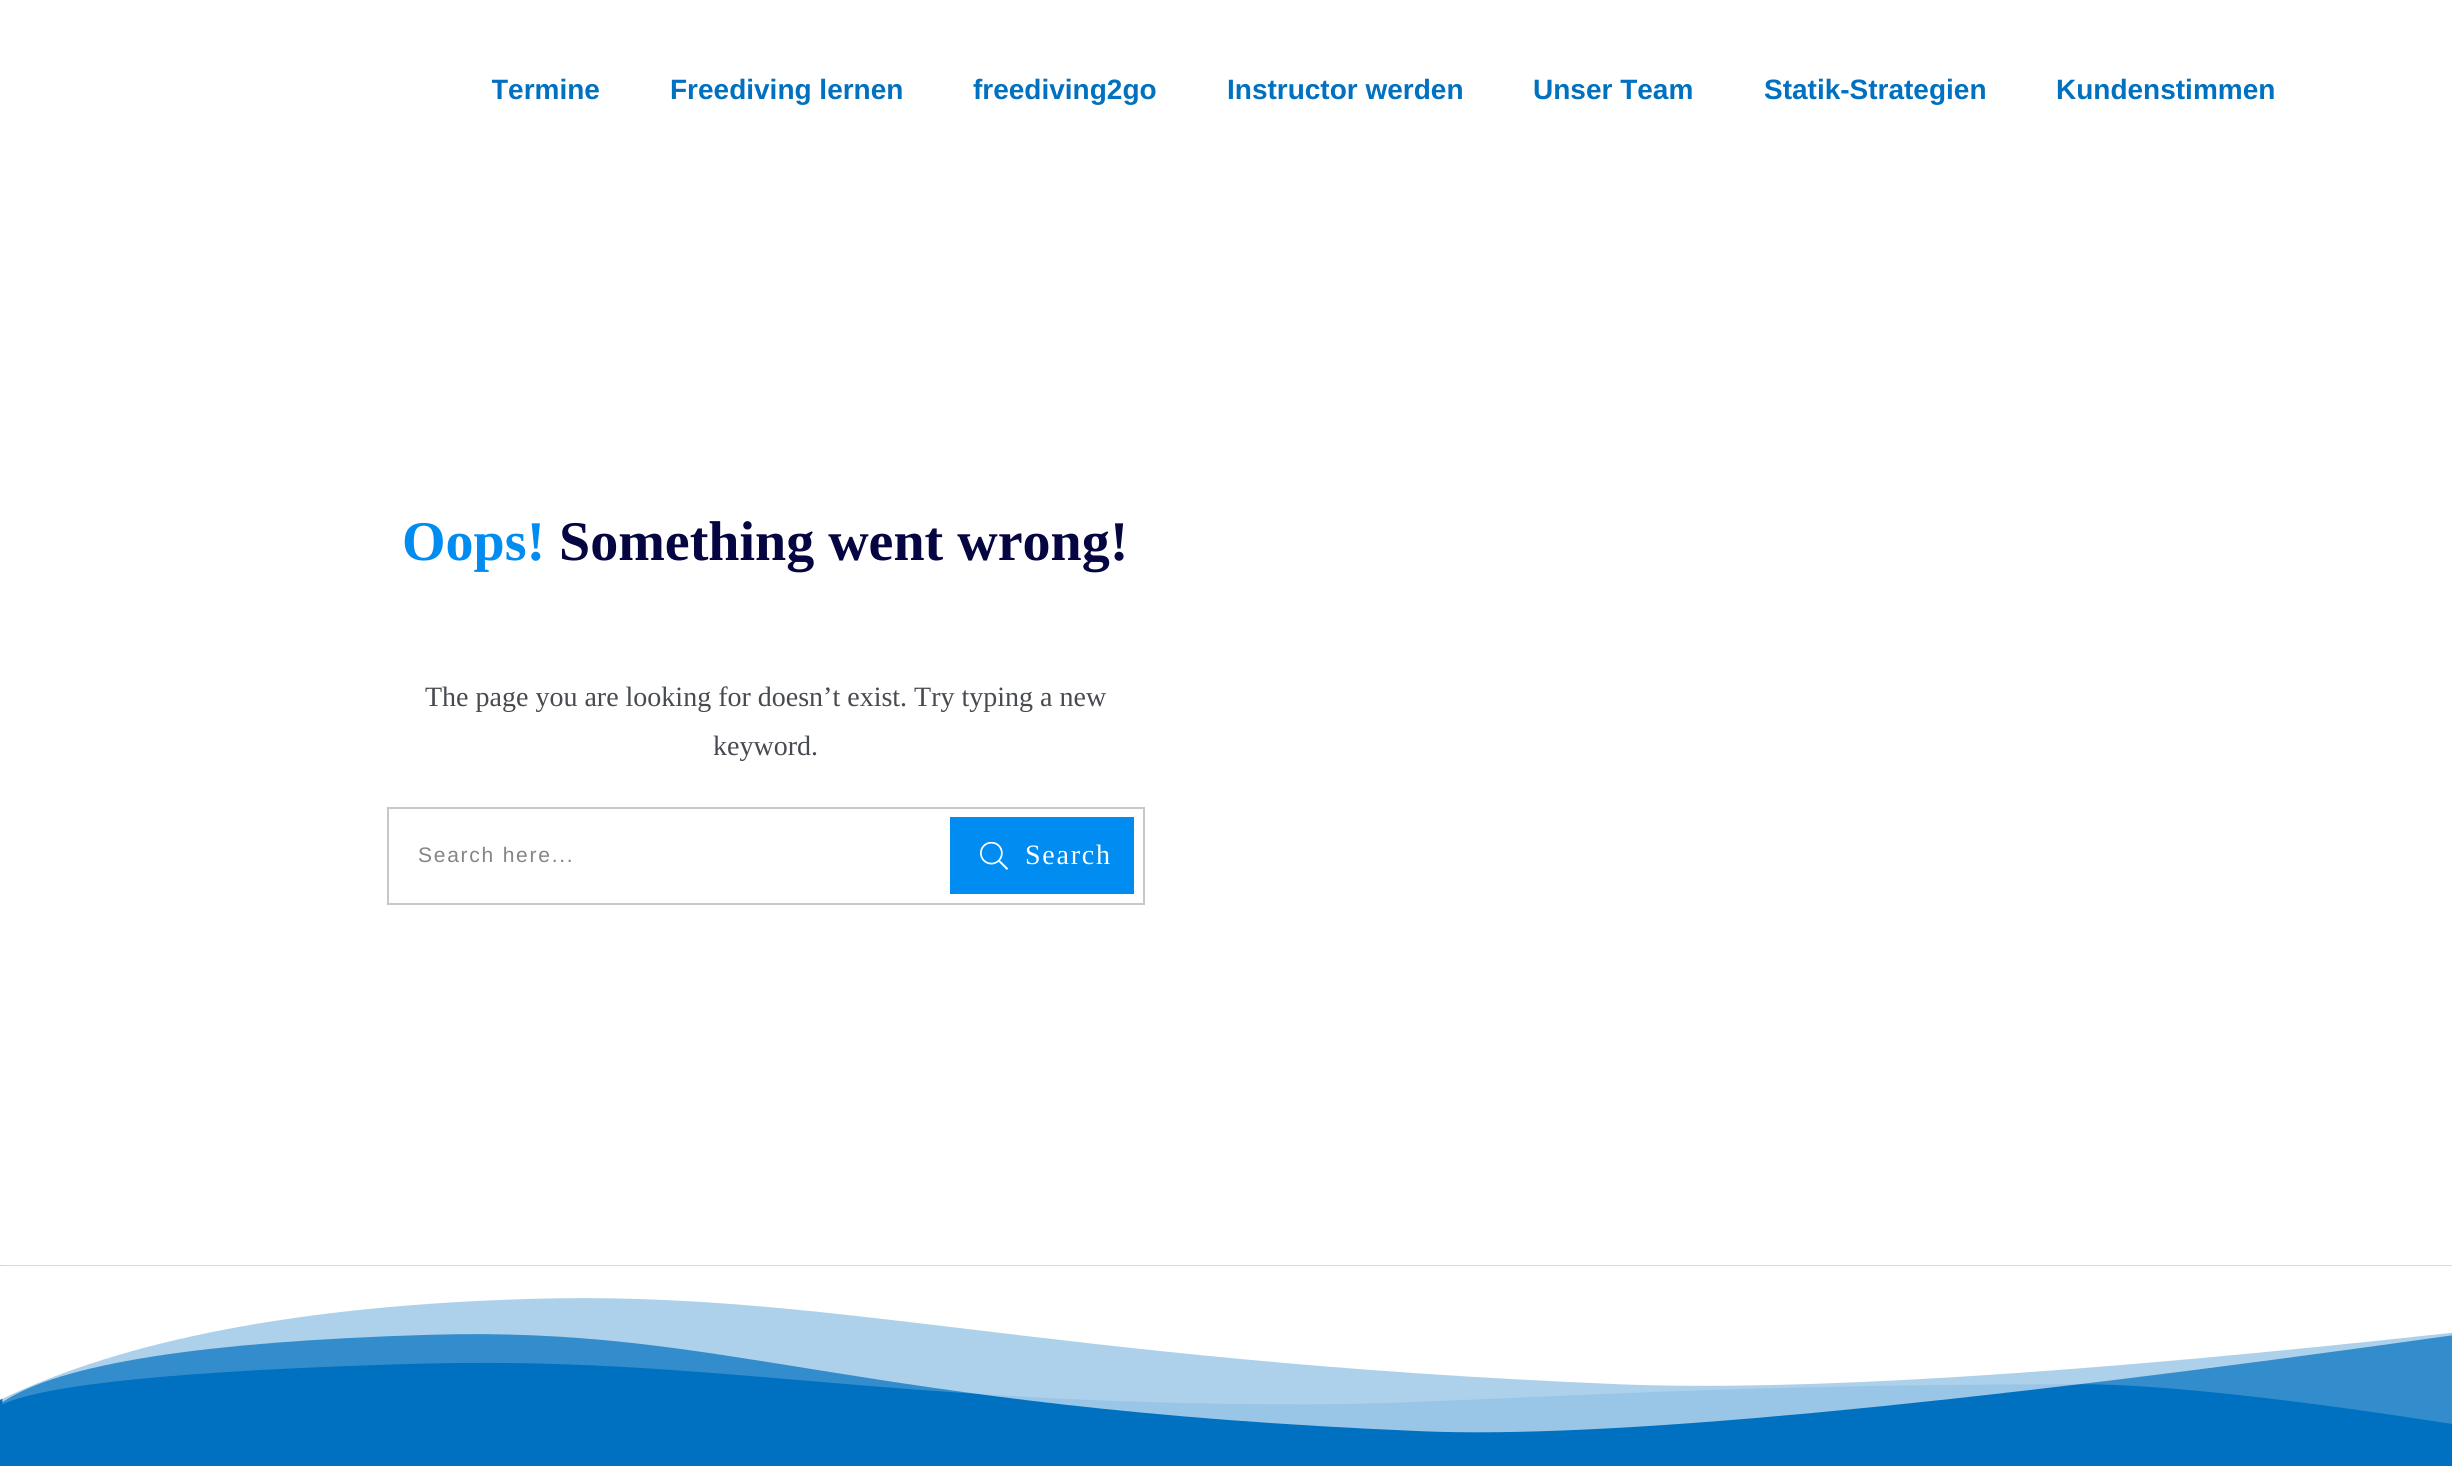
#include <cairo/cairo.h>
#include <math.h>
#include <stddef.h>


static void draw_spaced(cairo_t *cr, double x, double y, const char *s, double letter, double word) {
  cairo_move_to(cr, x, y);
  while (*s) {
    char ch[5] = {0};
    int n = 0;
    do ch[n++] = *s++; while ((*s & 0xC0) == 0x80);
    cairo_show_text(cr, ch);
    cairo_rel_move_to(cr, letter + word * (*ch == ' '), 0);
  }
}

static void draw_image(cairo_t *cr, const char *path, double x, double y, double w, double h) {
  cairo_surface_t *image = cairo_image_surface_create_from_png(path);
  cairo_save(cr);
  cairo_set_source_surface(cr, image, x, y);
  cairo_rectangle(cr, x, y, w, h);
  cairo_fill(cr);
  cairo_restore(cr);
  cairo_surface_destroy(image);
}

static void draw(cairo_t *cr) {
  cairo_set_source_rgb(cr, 1, 1, 1);
  cairo_paint(cr);
  cairo_rectangle(cr, 388, 808, 756, 96);
  cairo_set_source_rgb(cr, 199 / 255.0, 199 / 255.0, 199 / 255.0);
  cairo_stroke(cr);
  cairo_set_source_rgb(cr, 0, 140 / 255.0, 240 / 255.0);
  cairo_rectangle(cr, 950, 817, 184, 77);
  cairo_fill(cr);
  draw_image(cr, "images/1.png", 980, 842, 28, 28);
  cairo_set_source_rgb(cr, 0, 112 / 255.0, 192 / 255.0);
  cairo_rectangle(cr, 0, 1265, 2452, 201);
  cairo_fill(cr);
  draw_image(cr, "images/2.png", 0, 1265, 2452, 168);
  cairo_save(cr);
  cairo_rectangle(cr, 492, 61, 108, 56);
  cairo_clip(cr);
  cairo_select_font_face(cr, "Liberation Sans", CAIRO_FONT_SLANT_NORMAL, CAIRO_FONT_WEIGHT_BOLD);
  cairo_set_font_size(cr, 28);
  cairo_move_to(cr, 491, 99);
  cairo_show_text(cr, "Termine");
  cairo_restore(cr);
  cairo_select_font_face(cr, "Liberation Sans", CAIRO_FONT_SLANT_NORMAL, CAIRO_FONT_WEIGHT_BOLD);
  cairo_set_font_size(cr, 28);
  cairo_move_to(cr, 670, 99);
  cairo_show_text(cr, "Freediving lernen");
  cairo_move_to(cr, 973, 99);
  cairo_show_text(cr, "freediving2go");
  cairo_move_to(cr, 1227, 99);
  cairo_show_text(cr, "Instructor werden");
  cairo_move_to(cr, 1533, 99);
  cairo_show_text(cr, "Unser Team");
  cairo_move_to(cr, 1764, 99);
  cairo_show_text(cr, "Statik-Strategien");
  cairo_move_to(cr, 2056, 99);
  cairo_show_text(cr, "Kundenstimmen");
  cairo_select_font_face(cr, "Liberation Serif", CAIRO_FONT_SLANT_NORMAL, CAIRO_FONT_WEIGHT_BOLD);
  cairo_set_font_size(cr, 56);
  cairo_set_source_rgb(cr, 0, 140 / 255.0, 240 / 255.0);
  cairo_move_to(cr, 402, 560);
  cairo_show_text(cr, "Oops!");
  cairo_set_source_rgb(cr, 5 / 255.0, 5 / 255.0, 65 / 255.0);
  cairo_move_to(cr, 559, 560);
  cairo_show_text(cr, "Something went wrong!");
  cairo_select_font_face(cr, "Liberation Serif", CAIRO_FONT_SLANT_NORMAL, CAIRO_FONT_WEIGHT_NORMAL);
  cairo_set_font_size(cr, 28);
  cairo_set_source_rgb(cr, 71 / 255.0, 74 / 255.0, 80 / 255.0);
  cairo_move_to(cr, 425, 706);
  cairo_show_text(cr, "The page you are looking for doesn’t exist. Try typing a new");
  cairo_move_to(cr, 713, 755);
  cairo_show_text(cr, "keyword.");
  cairo_select_font_face(cr, "Liberation Sans", CAIRO_FONT_SLANT_NORMAL, CAIRO_FONT_WEIGHT_NORMAL);
  cairo_set_font_size(cr, 21);
  cairo_set_source_rgb(cr, 133 / 255.0, 133 / 255.0, 133 / 255.0);
  draw_spaced(cr, 418, 862, "Search here...", 1.75, 0);
  cairo_select_font_face(cr, "Liberation Serif", CAIRO_FONT_SLANT_NORMAL, CAIRO_FONT_WEIGHT_NORMAL);
  cairo_set_font_size(cr, 28);
  cairo_set_source_rgb(cr, 1, 1, 1);
  draw_spaced(cr, 1025, 864, "Search", 1.75, 0);
}

int main(void) {
  cairo_surface_t *surface = cairo_image_surface_create(CAIRO_FORMAT_RGB24, 2452, 1466);
  cairo_t *cr = cairo_create(surface);
  cairo_font_options_t *options = cairo_font_options_create();
  cairo_font_options_set_hint_metrics(options, CAIRO_HINT_METRICS_OFF);
  cairo_font_options_set_hint_style(options, CAIRO_HINT_STYLE_NONE);
  cairo_set_font_options(cr, options);
  cairo_set_miter_limit(cr, 4);
  draw(cr);
  cairo_surface_write_to_png(surface, "out.png");
  cairo_font_options_destroy(options);
  cairo_destroy(cr);
  cairo_surface_destroy(surface);
  return 0;
}
